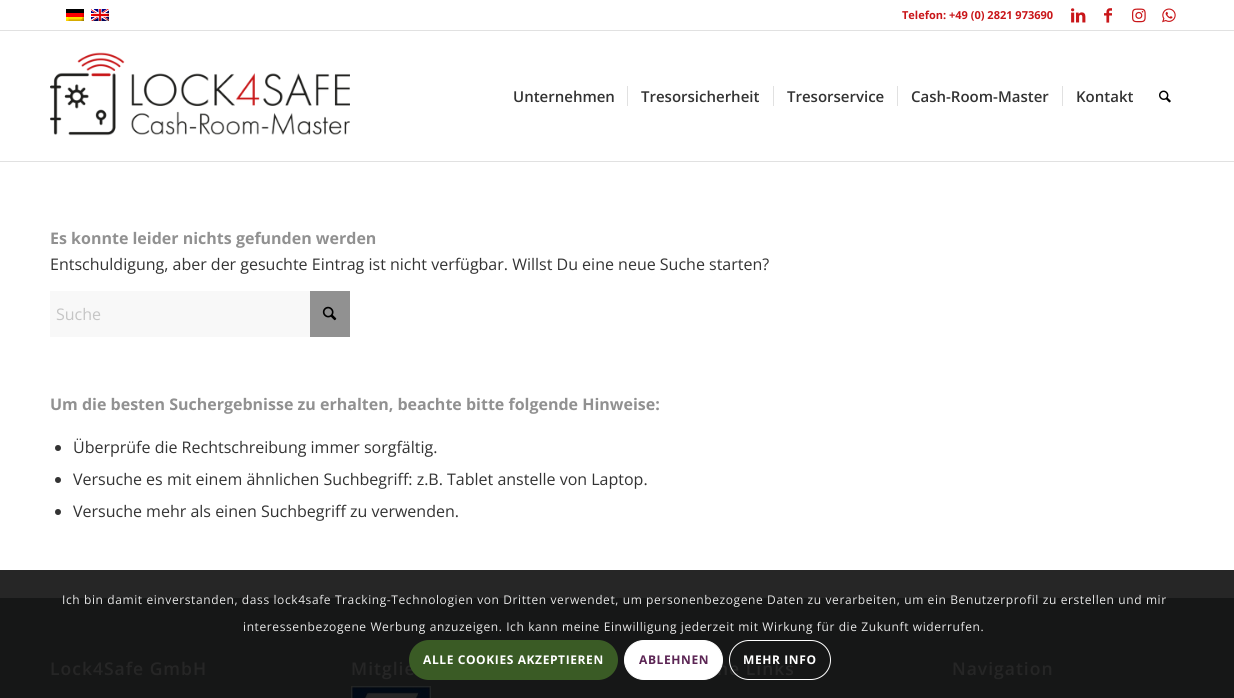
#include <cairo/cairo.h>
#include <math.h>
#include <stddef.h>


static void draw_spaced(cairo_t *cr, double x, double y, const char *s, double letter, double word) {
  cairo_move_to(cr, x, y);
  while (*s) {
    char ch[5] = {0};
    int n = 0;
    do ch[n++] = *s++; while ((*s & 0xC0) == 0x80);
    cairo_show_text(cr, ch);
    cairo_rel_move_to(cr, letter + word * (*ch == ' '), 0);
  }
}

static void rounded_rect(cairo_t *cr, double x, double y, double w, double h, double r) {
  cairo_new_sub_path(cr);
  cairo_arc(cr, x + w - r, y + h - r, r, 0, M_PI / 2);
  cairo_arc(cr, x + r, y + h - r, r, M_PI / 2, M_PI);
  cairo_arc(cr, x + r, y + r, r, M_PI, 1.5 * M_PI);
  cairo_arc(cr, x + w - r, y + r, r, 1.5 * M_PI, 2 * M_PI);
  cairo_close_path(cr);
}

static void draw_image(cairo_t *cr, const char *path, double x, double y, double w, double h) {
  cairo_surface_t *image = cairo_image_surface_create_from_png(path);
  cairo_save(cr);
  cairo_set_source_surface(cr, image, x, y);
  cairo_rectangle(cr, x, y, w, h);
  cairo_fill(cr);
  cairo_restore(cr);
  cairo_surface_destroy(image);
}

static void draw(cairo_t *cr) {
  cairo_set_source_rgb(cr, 1, 1, 1);
  cairo_paint(cr);
  cairo_set_source_rgb(cr, 38 / 255.0, 38 / 255.0, 38 / 255.0);
  cairo_rectangle(cr, 0, 570, 1234, 28);
  cairo_fill(cr);
  cairo_set_source_rgb(cr, 225 / 255.0, 225 / 255.0, 225 / 255.0);
  cairo_rectangle(cr, 0, 30, 1234, 1);
  cairo_fill(cr);
  draw_image(cr, "images/1.png", 66, 9, 18, 12);
  draw_image(cr, "images/2.png", 91, 9, 18, 12);
  draw_image(cr, "images/3.png", 1071, 8, 15, 15);
  draw_image(cr, "images/4.png", 1104, 8, 8, 15);
  draw_image(cr, "images/5.png", 1132, 8, 14, 15);
  draw_image(cr, "images/6.png", 1162, 8, 14, 15);
  cairo_rectangle(cr, 0, 161, 1234, 1);
  cairo_fill(cr);
  draw_image(cr, "images/7.png", 50, 52, 300, 84);
  cairo_rectangle(cr, 627, 86, 1, 20);
  cairo_fill(cr);
  cairo_rectangle(cr, 773, 86, 1, 20);
  cairo_fill(cr);
  cairo_rectangle(cr, 897, 86, 1, 20);
  cairo_fill(cr);
  cairo_rectangle(cr, 1062, 86, 1, 20);
  cairo_fill(cr);
  draw_image(cr, "images/8.png", 1159, 90, 12, 13);
  cairo_set_source_rgb(cr, 145 / 255.0, 145 / 255.0, 145 / 255.0);
  cairo_rectangle(cr, 310, 291, 40, 46);
  cairo_fill(cr);
  cairo_set_source_rgb(cr, 248 / 255.0, 248 / 255.0, 248 / 255.0);
  cairo_rectangle(cr, 50, 291, 260, 46);
  cairo_fill(cr);
  draw_image(cr, "images/9.png", 322, 306, 15, 15);
  cairo_set_source_rgb(cr, 51 / 255.0, 51 / 255.0, 51 / 255.0);
  cairo_arc(cr, 58, 448, 3, 0, 2 * M_PI);
  cairo_fill(cr);
  cairo_arc(cr, 58, 480, 3, 0, 2 * M_PI);
  cairo_fill(cr);
  cairo_arc(cr, 58, 512, 3, 0, 2 * M_PI);
  cairo_fill(cr);
  cairo_set_source_rgb(cr, 22 / 255.0, 23 / 255.0, 23 / 255.0);
  cairo_rectangle(cr, 0, 598, 1234, 100);
  cairo_fill(cr);
  draw_image(cr, "images/10.png", 351, 686, 80, 12);
  cairo_select_font_face(cr, "Open Sans", CAIRO_FONT_SLANT_NORMAL, CAIRO_FONT_WEIGHT_BOLD);
  cairo_set_font_size(cr, 11);
  cairo_set_source_rgb(cr, 201 / 255.0, 22 / 255.0, 25 / 255.0);
  cairo_move_to(cr, 902, 19);
  cairo_show_text(cr, "Telefon: +49 (0) 2821 973690");
  cairo_select_font_face(cr, "Open Sans SemiBold", CAIRO_FONT_SLANT_NORMAL, CAIRO_FONT_WEIGHT_NORMAL);
  cairo_set_font_size(cr, 15);
  cairo_set_source_rgb(cr, 51 / 255.0, 51 / 255.0, 51 / 255.0);
  cairo_move_to(cr, 513, 102);
  cairo_show_text(cr, "Unternehmen");
  cairo_move_to(cr, 641, 102);
  cairo_show_text(cr, "Tresorsicherheit");
  cairo_move_to(cr, 787, 102);
  cairo_show_text(cr, "Tresorservice");
  cairo_move_to(cr, 911, 102);
  cairo_show_text(cr, "Cash-Room-Master");
  cairo_move_to(cr, 1076, 102);
  cairo_show_text(cr, "Kontakt");
  cairo_select_font_face(cr, "Open Sans", CAIRO_FONT_SLANT_NORMAL, CAIRO_FONT_WEIGHT_BOLD);
  cairo_set_font_size(cr, 16);
  cairo_set_source_rgb(cr, 145 / 255.0, 145 / 255.0, 145 / 255.0);
  cairo_move_to(cr, 50, 244);
  cairo_show_text(cr, "Es konnte leider nichts gefunden werden");
  cairo_select_font_face(cr, "Open Sans", CAIRO_FONT_SLANT_NORMAL, CAIRO_FONT_WEIGHT_NORMAL);
  cairo_set_source_rgb(cr, 51 / 255.0, 51 / 255.0, 51 / 255.0);
  cairo_move_to(cr, 50, 270);
  cairo_show_text(cr, "Entschuldigung, aber der gesuchte Eintrag ist nicht verfügbar. Willst Du eine neue Suche starten?");
  cairo_set_source_rgb(cr, 197 / 255.0, 197 / 255.0, 197 / 255.0);
  cairo_move_to(cr, 56, 320);
  cairo_show_text(cr, "Suche");
  cairo_select_font_face(cr, "Open Sans", CAIRO_FONT_SLANT_NORMAL, CAIRO_FONT_WEIGHT_BOLD);
  cairo_set_source_rgb(cr, 145 / 255.0, 145 / 255.0, 145 / 255.0);
  cairo_move_to(cr, 50, 410);
  cairo_show_text(cr, "Um die besten Suchergebnisse zu erhalten, beachte bitte folgende Hinweise:");
  cairo_select_font_face(cr, "Open Sans", CAIRO_FONT_SLANT_NORMAL, CAIRO_FONT_WEIGHT_NORMAL);
  cairo_set_source_rgb(cr, 51 / 255.0, 51 / 255.0, 51 / 255.0);
  cairo_move_to(cr, 73, 453);
  cairo_show_text(cr, "Überprüfe die Rechtschreibung immer sorgfältig.");
  cairo_move_to(cr, 73, 485);
  cairo_show_text(cr, "Versuche es mit einem ähnlichen Suchbegriff: z.B. Tablet anstelle von Laptop.");
  cairo_move_to(cr, 73, 517);
  cairo_show_text(cr, "Versuche mehr als einen Suchbegriff zu verwenden.");
  cairo_select_font_face(cr, "Open Sans SemiBold", CAIRO_FONT_SLANT_NORMAL, CAIRO_FONT_WEIGHT_NORMAL);
  cairo_set_font_size(cr, 17.5);
  cairo_set_source_rgb(cr, 38 / 255.0, 38 / 255.0, 38 / 255.0);
  draw_spaced(cr, 50, 675, "Lock4Safe GmbH", 1, 0);
  draw_spaced(cr, 351, 675, "Mitglie", 1, 0);
  draw_spaced(cr, 717, 675, "he Links", 1, 0);
  draw_spaced(cr, 952, 675, "Navigation", 1, 0);
  cairo_select_font_face(cr, "Open Sans", CAIRO_FONT_SLANT_NORMAL, CAIRO_FONT_WEIGHT_NORMAL);
  cairo_set_font_size(cr, 12);
  cairo_set_source_rgb(cr, 232 / 255.0, 232 / 255.0, 232 / 255.0);
  draw_spaced(cr, 62, 604, "Ich bin damit einverstanden, dass lock4safe Tracking-Technologien von Dritten verwendet, um personenbezogene Daten zu verarbeiten, um ein Benutzerprofil zu erstellen und mir", 0.6, 0);
  draw_spaced(cr, 243, 631, "interessenbezogene Werbung anzuzeigen. Ich kann meine Einwilligung jederzeit mit Wirkung für die Zukunft widerrufen.", 0.6, 0);
  cairo_set_source_rgb(cr, 58 / 255.0, 91 / 255.0, 37 / 255.0);
  rounded_rect(cr, 409, 640, 209, 40, 20);
  cairo_fill(cr);
  cairo_select_font_face(cr, "Open Sans", CAIRO_FONT_SLANT_NORMAL, CAIRO_FONT_WEIGHT_BOLD);
  cairo_set_source_rgb(cr, 1, 1, 1);
  draw_spaced(cr, 423, 664, "ALLE COOKIES AKZEPTIEREN", 0.6, 0);
  rounded_rect(cr, 624.5, 640.5, 98, 39, 19.5);
  cairo_fill_preserve(cr);
  cairo_set_line_width(cr, 1);
  cairo_stroke(cr);
  cairo_set_source_rgb(cr, 91 / 255.0, 37 / 255.0, 84 / 255.0);
  draw_spaced(cr, 639, 664, "ABLEHNEN", 0.6, 0);
  rounded_rect(cr, 729.5, 640.5, 101, 39, 19.5);
  cairo_set_source_rgb(cr, 1, 1, 1);
  cairo_stroke(cr);
  draw_spaced(cr, 743, 664, "MEHR INFO", 0.6, 0);
}

int main(void) {
  cairo_surface_t *surface = cairo_image_surface_create(CAIRO_FORMAT_RGB24, 1234, 698);
  cairo_t *cr = cairo_create(surface);
  cairo_font_options_t *options = cairo_font_options_create();
  cairo_font_options_set_hint_metrics(options, CAIRO_HINT_METRICS_OFF);
  cairo_font_options_set_hint_style(options, CAIRO_HINT_STYLE_NONE);
  cairo_set_font_options(cr, options);
  cairo_set_miter_limit(cr, 4);
  draw(cr);
  cairo_surface_write_to_png(surface, "out.png");
  cairo_font_options_destroy(options);
  cairo_destroy(cr);
  cairo_surface_destroy(surface);
  return 0;
}
